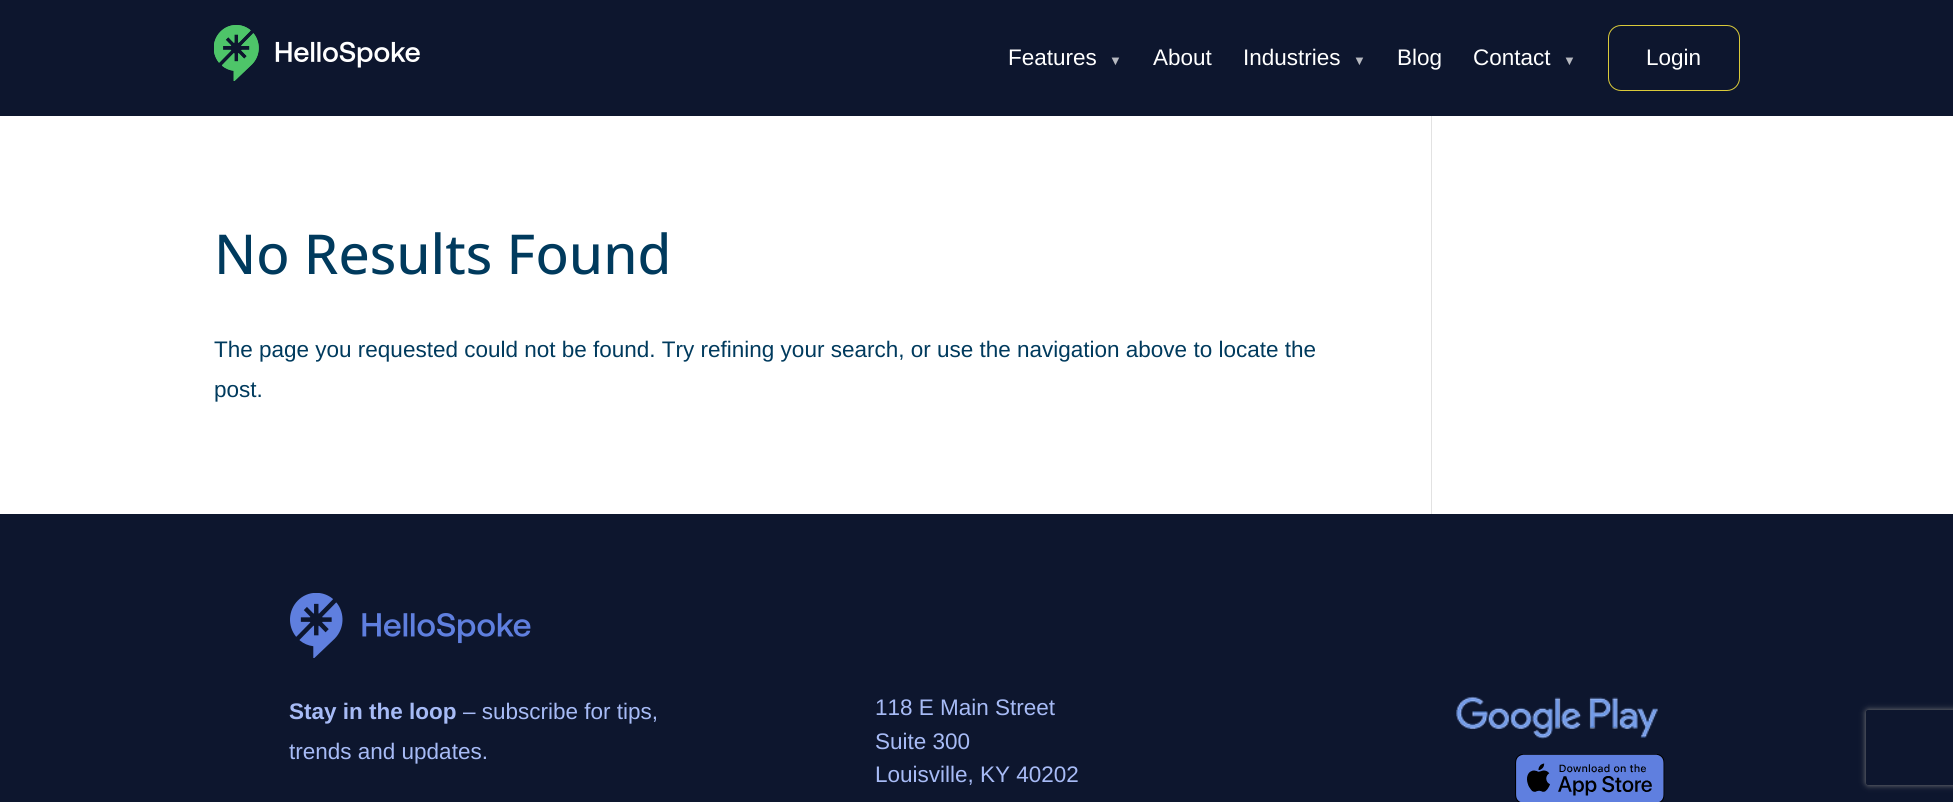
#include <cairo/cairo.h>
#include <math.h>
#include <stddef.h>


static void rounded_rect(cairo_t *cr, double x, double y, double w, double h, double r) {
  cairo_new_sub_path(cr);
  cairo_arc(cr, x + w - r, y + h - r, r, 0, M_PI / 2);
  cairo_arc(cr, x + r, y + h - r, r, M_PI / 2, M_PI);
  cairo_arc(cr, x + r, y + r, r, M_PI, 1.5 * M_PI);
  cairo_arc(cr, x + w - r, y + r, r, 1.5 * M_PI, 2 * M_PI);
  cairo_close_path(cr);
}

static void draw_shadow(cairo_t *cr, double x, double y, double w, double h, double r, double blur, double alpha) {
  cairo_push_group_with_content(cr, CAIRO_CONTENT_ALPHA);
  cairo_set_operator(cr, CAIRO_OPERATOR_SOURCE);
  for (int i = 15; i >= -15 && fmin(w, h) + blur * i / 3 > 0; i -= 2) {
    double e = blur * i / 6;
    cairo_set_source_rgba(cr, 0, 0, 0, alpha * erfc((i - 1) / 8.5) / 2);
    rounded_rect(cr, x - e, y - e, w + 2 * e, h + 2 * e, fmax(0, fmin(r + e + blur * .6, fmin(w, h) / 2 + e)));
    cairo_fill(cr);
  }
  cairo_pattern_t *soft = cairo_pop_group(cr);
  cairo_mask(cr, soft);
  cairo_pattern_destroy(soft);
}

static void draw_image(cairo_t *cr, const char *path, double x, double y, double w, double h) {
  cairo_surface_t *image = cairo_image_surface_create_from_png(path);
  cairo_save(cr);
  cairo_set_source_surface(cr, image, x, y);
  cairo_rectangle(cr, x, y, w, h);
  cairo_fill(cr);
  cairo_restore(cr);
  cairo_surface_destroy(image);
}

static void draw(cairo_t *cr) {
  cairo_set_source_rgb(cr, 1, 1, 1);
  cairo_paint(cr);
  cairo_set_source_rgb(cr, 13 / 255.0, 22 / 255.0, 46 / 255.0);
  cairo_rectangle(cr, 0, 0, 1953, 116);
  cairo_fill(cr);
  draw_image(cr, "images/1.png", 214, 25, 206, 56);
  rounded_rect(cr, 1608.5, 25.5, 131, 65, 12.5);
  cairo_set_source_rgb(cr, 218 / 255.0, 202 / 255.0, 58 / 255.0);
  cairo_set_line_width(cr, 1);
  cairo_stroke(cr);
  cairo_set_source_rgb(cr, 226 / 255.0, 226 / 255.0, 226 / 255.0);
  cairo_rectangle(cr, 1431, 116, 1, 398);
  cairo_fill(cr);
  cairo_set_source_rgb(cr, 13 / 255.0, 22 / 255.0, 46 / 255.0);
  cairo_rectangle(cr, 0, 514, 1953, 288);
  cairo_fill(cr);
  draw_image(cr, "images/2.png", 290, 593, 241, 65);
  draw_image(cr, "images/3.png", 1456, 696, 202, 43);
  draw_image(cr, "images/4.png", 1515, 754, 150, 48);
  cairo_save(cr);
  cairo_set_fill_rule(cr, CAIRO_FILL_RULE_EVEN_ODD);
  cairo_new_path(cr);
  cairo_move_to(cr, 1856, 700);
  cairo_line_to(cr, 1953, 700);
  cairo_line_to(cr, 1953, 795);
  cairo_line_to(cr, 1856, 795);
  cairo_close_path(cr);
  cairo_move_to(cr, 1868.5, 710);
  cairo_line_to(cr, 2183.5, 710);
  cairo_curve_to(cr, 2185, 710, 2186, 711, 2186, 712.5);
  cairo_line_to(cr, 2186, 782.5);
  cairo_curve_to(cr, 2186, 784, 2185, 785, 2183.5, 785);
  cairo_line_to(cr, 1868.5, 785);
  cairo_curve_to(cr, 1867, 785, 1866, 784, 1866, 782.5);
  cairo_line_to(cr, 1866, 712.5);
  cairo_curve_to(cr, 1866, 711, 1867, 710, 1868.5, 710);
  cairo_close_path(cr);
  cairo_clip(cr);
  cairo_set_source_rgb(cr, 128 / 255.0, 128 / 255.0, 128 / 255.0);
  draw_shadow(cr, 1866, 710, 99, 75, 2.5, 3, 1);
  cairo_restore(cr);
  cairo_select_font_face(cr, "Liberation Sans", CAIRO_FONT_SLANT_NORMAL, CAIRO_FONT_WEIGHT_NORMAL);
  cairo_set_font_size(cr, 22.5);
  cairo_set_source_rgb(cr, 1, 1, 1);
  cairo_move_to(cr, 1008, 65);
  cairo_show_text(cr, "Features");
  cairo_set_font_size(cr, 13);
  cairo_set_source_rgb(cr, 182 / 255.0, 185 / 255.0, 192 / 255.0);
  cairo_move_to(cr, 1109, 65);
  cairo_show_text(cr, "▼");
  cairo_set_font_size(cr, 22.5);
  cairo_set_source_rgb(cr, 1, 1, 1);
  cairo_move_to(cr, 1153, 65);
  cairo_show_text(cr, "About");
  cairo_move_to(cr, 1243, 65);
  cairo_show_text(cr, "Industries");
  cairo_set_font_size(cr, 13);
  cairo_set_source_rgb(cr, 182 / 255.0, 185 / 255.0, 192 / 255.0);
  cairo_move_to(cr, 1353, 65);
  cairo_show_text(cr, "▼");
  cairo_set_font_size(cr, 22.5);
  cairo_set_source_rgb(cr, 1, 1, 1);
  cairo_move_to(cr, 1397, 65);
  cairo_show_text(cr, "Blog");
  cairo_move_to(cr, 1473, 65);
  cairo_show_text(cr, "Contact");
  cairo_set_font_size(cr, 13);
  cairo_set_source_rgb(cr, 182 / 255.0, 185 / 255.0, 192 / 255.0);
  cairo_move_to(cr, 1563, 65);
  cairo_show_text(cr, "▼");
  cairo_set_font_size(cr, 22.5);
  cairo_set_source_rgb(cr, 1, 1, 1);
  cairo_move_to(cr, 1646, 65);
  cairo_show_text(cr, "Login");
  cairo_select_font_face(cr, "Open Sans Medium", CAIRO_FONT_SLANT_NORMAL, CAIRO_FONT_WEIGHT_NORMAL);
  cairo_set_font_size(cr, 55);
  cairo_set_source_rgb(cr, 0, 58 / 255.0, 93 / 255.0);
  cairo_move_to(cr, 214, 274);
  cairo_show_text(cr, "No Results Found");
  cairo_select_font_face(cr, "Liberation Sans", CAIRO_FONT_SLANT_NORMAL, CAIRO_FONT_WEIGHT_NORMAL);
  cairo_set_font_size(cr, 22.5);
  cairo_move_to(cr, 214, 357);
  cairo_show_text(cr, "The page you requested could not be found. Try refining your search, or use the navigation above to locate the");
  cairo_move_to(cr, 214, 397);
  cairo_show_text(cr, "post.");
  cairo_select_font_face(cr, "Liberation Sans", CAIRO_FONT_SLANT_NORMAL, CAIRO_FONT_WEIGHT_BOLD);
  cairo_set_source_rgb(cr, 167 / 255.0, 187 / 255.0, 246 / 255.0);
  cairo_move_to(cr, 289, 719);
  cairo_show_text(cr, "Stay in the loop");
  cairo_select_font_face(cr, "Liberation Sans", CAIRO_FONT_SLANT_NORMAL, CAIRO_FONT_WEIGHT_NORMAL);
  cairo_move_to(cr, 463, 719);
  cairo_show_text(cr, "– subscribe for tips,");
  cairo_move_to(cr, 289, 759);
  cairo_show_text(cr, "trends and updates.");
  cairo_move_to(cr, 875, 715);
  cairo_show_text(cr, "118 E Main Street");
  cairo_move_to(cr, 875, 749);
  cairo_show_text(cr, "Suite 300");
  cairo_move_to(cr, 875, 782);
  cairo_show_text(cr, "Louisville, KY 40202");
}

int main(void) {
  cairo_surface_t *surface = cairo_image_surface_create(CAIRO_FORMAT_RGB24, 1953, 802);
  cairo_t *cr = cairo_create(surface);
  cairo_font_options_t *options = cairo_font_options_create();
  cairo_font_options_set_hint_metrics(options, CAIRO_HINT_METRICS_OFF);
  cairo_font_options_set_hint_style(options, CAIRO_HINT_STYLE_NONE);
  cairo_set_font_options(cr, options);
  cairo_set_miter_limit(cr, 4);
  draw(cr);
  cairo_surface_write_to_png(surface, "out.png");
  cairo_font_options_destroy(options);
  cairo_destroy(cr);
  cairo_surface_destroy(surface);
  return 0;
}
